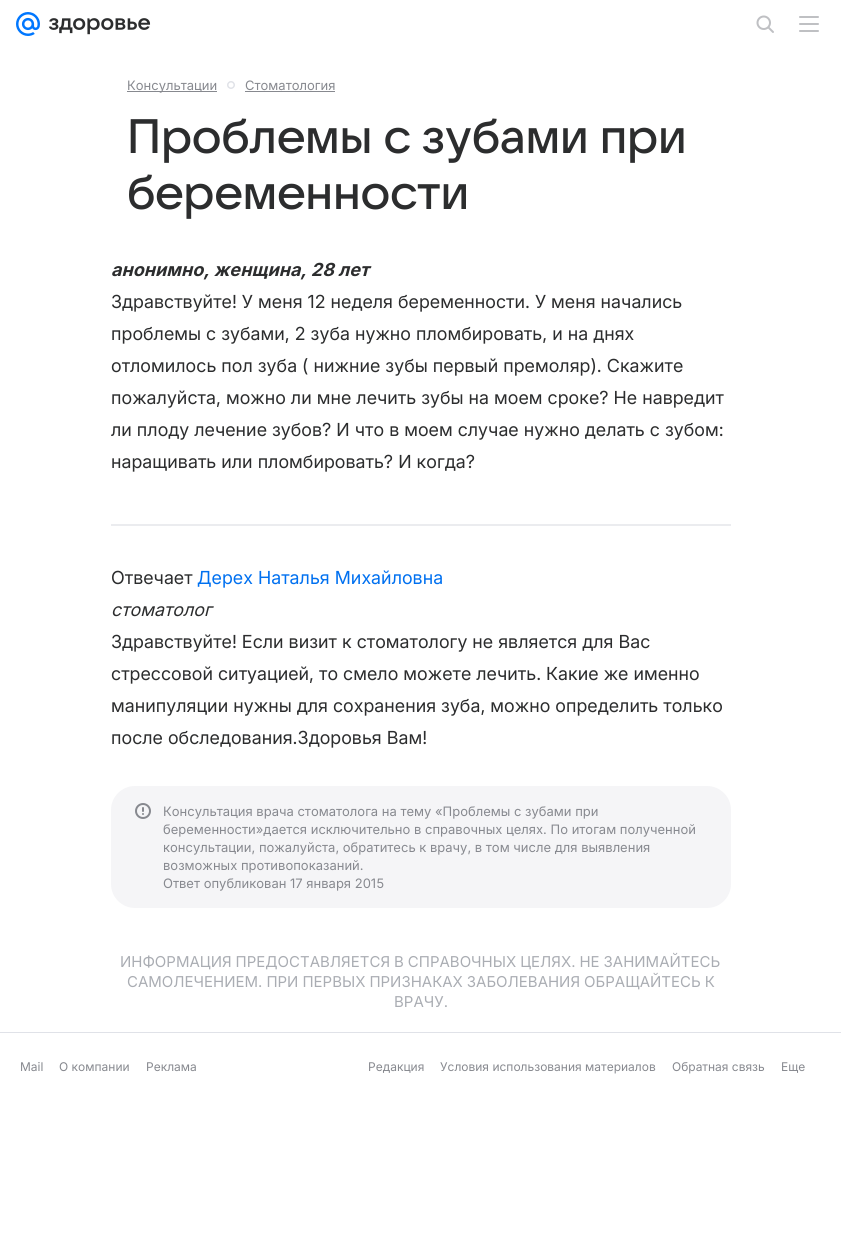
#include <cairo/cairo.h>
#include <math.h>
#include <stddef.h>


static void draw_spaced(cairo_t *cr, double x, double y, const char *s, double letter, double word) {
  cairo_move_to(cr, x, y);
  while (*s) {
    char ch[5] = {0};
    int n = 0;
    do ch[n++] = *s++; while ((*s & 0xC0) == 0x80);
    cairo_show_text(cr, ch);
    cairo_rel_move_to(cr, letter + word * (*ch == ' '), 0);
  }
}

static void rounded_rect(cairo_t *cr, double x, double y, double w, double h, double r) {
  cairo_new_sub_path(cr);
  cairo_arc(cr, x + w - r, y + h - r, r, 0, M_PI / 2);
  cairo_arc(cr, x + r, y + h - r, r, M_PI / 2, M_PI);
  cairo_arc(cr, x + r, y + r, r, M_PI, 1.5 * M_PI);
  cairo_arc(cr, x + w - r, y + r, r, 1.5 * M_PI, 2 * M_PI);
  cairo_close_path(cr);
}

static void draw_image(cairo_t *cr, const char *path, double x, double y, double w, double h) {
  cairo_surface_t *image = cairo_image_surface_create_from_png(path);
  cairo_save(cr);
  cairo_set_source_surface(cr, image, x, y);
  cairo_rectangle(cr, x, y, w, h);
  cairo_fill(cr);
  cairo_restore(cr);
  cairo_surface_destroy(image);
}

static void draw(cairo_t *cr) {
  cairo_set_source_rgb(cr, 1, 1, 1);
  cairo_paint(cr);
  draw_image(cr, "images/1.png", 16, 12, 24, 24);
  draw_image(cr, "images/2.png", 48, 18, 103, 17);
  draw_image(cr, "images/3.png", 756, 15, 18, 18);
  draw_image(cr, "images/4.png", 799, 16, 20, 16);
  cairo_set_source_rgb(cr, 135 / 255.0, 137 / 255.0, 143 / 255.0);
  cairo_rectangle(cr, 127, 91, 90, 1);
  cairo_fill(cr);
  draw_image(cr, "images/5.png", 227, 81, 8, 8);
  cairo_rectangle(cr, 245, 91, 90, 1);
  cairo_fill(cr);
  cairo_set_source_rgb(cr, 235 / 255.0, 236 / 255.0, 239 / 255.0);
  cairo_rectangle(cr, 111, 524, 620, 2);
  cairo_fill(cr);
  cairo_set_source_rgb(cr, 245 / 255.0, 245 / 255.0, 247 / 255.0);
  rounded_rect(cr, 111, 786, 620, 122, 24);
  cairo_fill(cr);
  draw_image(cr, "images/6.png", 135, 803, 16, 16);
  cairo_set_source_rgb(cr, 224 / 255.0, 226 / 255.0, 232 / 255.0);
  cairo_rectangle(cr, 0, 1032, 841, 1);
  cairo_fill(cr);
  cairo_select_font_face(cr, "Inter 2", CAIRO_FONT_SLANT_NORMAL, CAIRO_FONT_WEIGHT_NORMAL);
  cairo_set_font_size(cr, 13);
  cairo_set_source_rgb(cr, 135 / 255.0, 137 / 255.0, 143 / 255.0);
  cairo_move_to(cr, 127, 90);
  cairo_show_text(cr, "Консультации");
  cairo_move_to(cr, 245, 90);
  cairo_show_text(cr, "Стоматология");
  cairo_select_font_face(cr, "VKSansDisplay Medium", CAIRO_FONT_SLANT_NORMAL, CAIRO_FONT_WEIGHT_NORMAL);
  cairo_set_font_size(cr, 48);
  cairo_set_source_rgb(cr, 44 / 255.0, 45 / 255.0, 46 / 255.0);
  draw_spaced(cr, 127, 153, "Проблемы с зубами при", -0.25, 0);
  draw_spaced(cr, 127, 209, "беременности", -0.25, 0);
  cairo_select_font_face(cr, "Inter", CAIRO_FONT_SLANT_ITALIC, CAIRO_FONT_WEIGHT_BOLD);
  cairo_set_font_size(cr, 18);
  draw_spaced(cr, 111, 276, "анонимно, женщина, 28 лет", 0.05, 0);
  cairo_select_font_face(cr, "Inter", CAIRO_FONT_SLANT_NORMAL, CAIRO_FONT_WEIGHT_NORMAL);
  draw_spaced(cr, 111, 308, "Здравствуйте! У меня 12 неделя беременности. У меня начались", 0.05, 0);
  draw_spaced(cr, 111, 340, "проблемы с зубами, 2 зуба нужно пломбировать, и на днях", 0.05, 0);
  draw_spaced(cr, 111, 372, "отломилось пол зуба ( нижние зубы первый премоляр). Скажите", 0.05, 0);
  draw_spaced(cr, 111, 404, "пожалуйста, можно ли мне лечить зубы на моем сроке? Не навредит", 0.05, 0);
  draw_spaced(cr, 111, 436, "ли плоду лечение зубов? И что в моем случае нужно делать с зубом:", 0.05, 0);
  draw_spaced(cr, 111, 468, "наращивать или пломбировать? И когда?", 0.05, 0);
  draw_spaced(cr, 111, 584, "Отвечает", 0.05, 0);
  cairo_set_source_rgb(cr, 0, 112 / 255.0, 240 / 255.0);
  draw_spaced(cr, 197, 584, "Дерех Наталья Михайловна", 0.05, 0);
  cairo_select_font_face(cr, "Inter", CAIRO_FONT_SLANT_ITALIC, CAIRO_FONT_WEIGHT_NORMAL);
  cairo_set_source_rgb(cr, 44 / 255.0, 45 / 255.0, 46 / 255.0);
  draw_spaced(cr, 111, 616, "стоматолог", 0.05, 0);
  cairo_select_font_face(cr, "Inter", CAIRO_FONT_SLANT_NORMAL, CAIRO_FONT_WEIGHT_NORMAL);
  draw_spaced(cr, 111, 648, "Здравствуйте! Если визит к стоматологу не является для Вас", 0.05, 0);
  draw_spaced(cr, 111, 680, "стрессовой ситуацией, то смело можете лечить. Какие же именно", 0.05, 0);
  draw_spaced(cr, 111, 712, "манипуляции нужны для сохранения зуба, можно определить только", 0.05, 0);
  draw_spaced(cr, 111, 744, "после обследования.Здоровья Вам!", 0.05, 0);
  cairo_select_font_face(cr, "Inter 2", CAIRO_FONT_SLANT_NORMAL, CAIRO_FONT_WEIGHT_NORMAL);
  cairo_set_font_size(cr, 13);
  cairo_set_source_rgb(cr, 135 / 255.0, 137 / 255.0, 143 / 255.0);
  cairo_move_to(cr, 163, 816);
  cairo_show_text(cr, "Консультация врача стоматолога на тему «Проблемы с зубами при");
  cairo_move_to(cr, 163, 834);
  cairo_show_text(cr, "беременности»дается исключительно в справочных целях. По итогам полученной");
  cairo_move_to(cr, 163, 852);
  cairo_show_text(cr, "консультации, пожалуйста, обратитесь к врачу, в том числе для выявления");
  cairo_move_to(cr, 163, 870);
  cairo_show_text(cr, "возможных противопоказаний.");
  cairo_move_to(cr, 163, 888);
  cairo_show_text(cr, "Ответ опубликован 17 января 2015");
  cairo_set_font_size(cr, 15);
  cairo_set_source_rgb(cr, 170 / 255.0, 173 / 255.0, 179 / 255.0);
  draw_spaced(cr, 120, 967, "ИНФОРМАЦИЯ ПРЕДОСТАВЛЯЕТСЯ В СПРАВОЧНЫХ ЦЕЛЯХ. НЕ ЗАНИМАЙТЕСЬ", 0, -0.25);
  draw_spaced(cr, 127, 987, "САМОЛЕЧЕНИЕМ. ПРИ ПЕРВЫХ ПРИЗНАКАХ ЗАБОЛЕВАНИЯ ОБРАЩАЙТЕСЬ К", 0, -0.25);
  cairo_move_to(cr, 394, 1007);
  cairo_show_text(cr, "ВРАЧУ.");
  cairo_set_font_size(cr, 12);
  cairo_set_source_rgb(cr, 135 / 255.0, 137 / 255.0, 143 / 255.0);
  cairo_move_to(cr, 20, 1071);
  cairo_show_text(cr, "Mail");
  cairo_move_to(cr, 59, 1071);
  cairo_show_text(cr, "О компании");
  cairo_move_to(cr, 146, 1071);
  cairo_show_text(cr, "Реклама");
  cairo_move_to(cr, 368, 1071);
  cairo_show_text(cr, "Редакция");
  cairo_move_to(cr, 440, 1071);
  cairo_show_text(cr, "Условия использования материалов");
  cairo_move_to(cr, 672, 1071);
  cairo_show_text(cr, "Обратная связь");
  cairo_move_to(cr, 781, 1071);
  cairo_show_text(cr, "Еще");
}

int main(void) {
  cairo_surface_t *surface = cairo_image_surface_create(CAIRO_FORMAT_RGB24, 841, 1241);
  cairo_t *cr = cairo_create(surface);
  cairo_font_options_t *options = cairo_font_options_create();
  cairo_font_options_set_hint_metrics(options, CAIRO_HINT_METRICS_OFF);
  cairo_font_options_set_hint_style(options, CAIRO_HINT_STYLE_NONE);
  cairo_set_font_options(cr, options);
  cairo_set_miter_limit(cr, 4);
  draw(cr);
  cairo_surface_write_to_png(surface, "out.png");
  cairo_font_options_destroy(options);
  cairo_destroy(cr);
  cairo_surface_destroy(surface);
  return 0;
}
